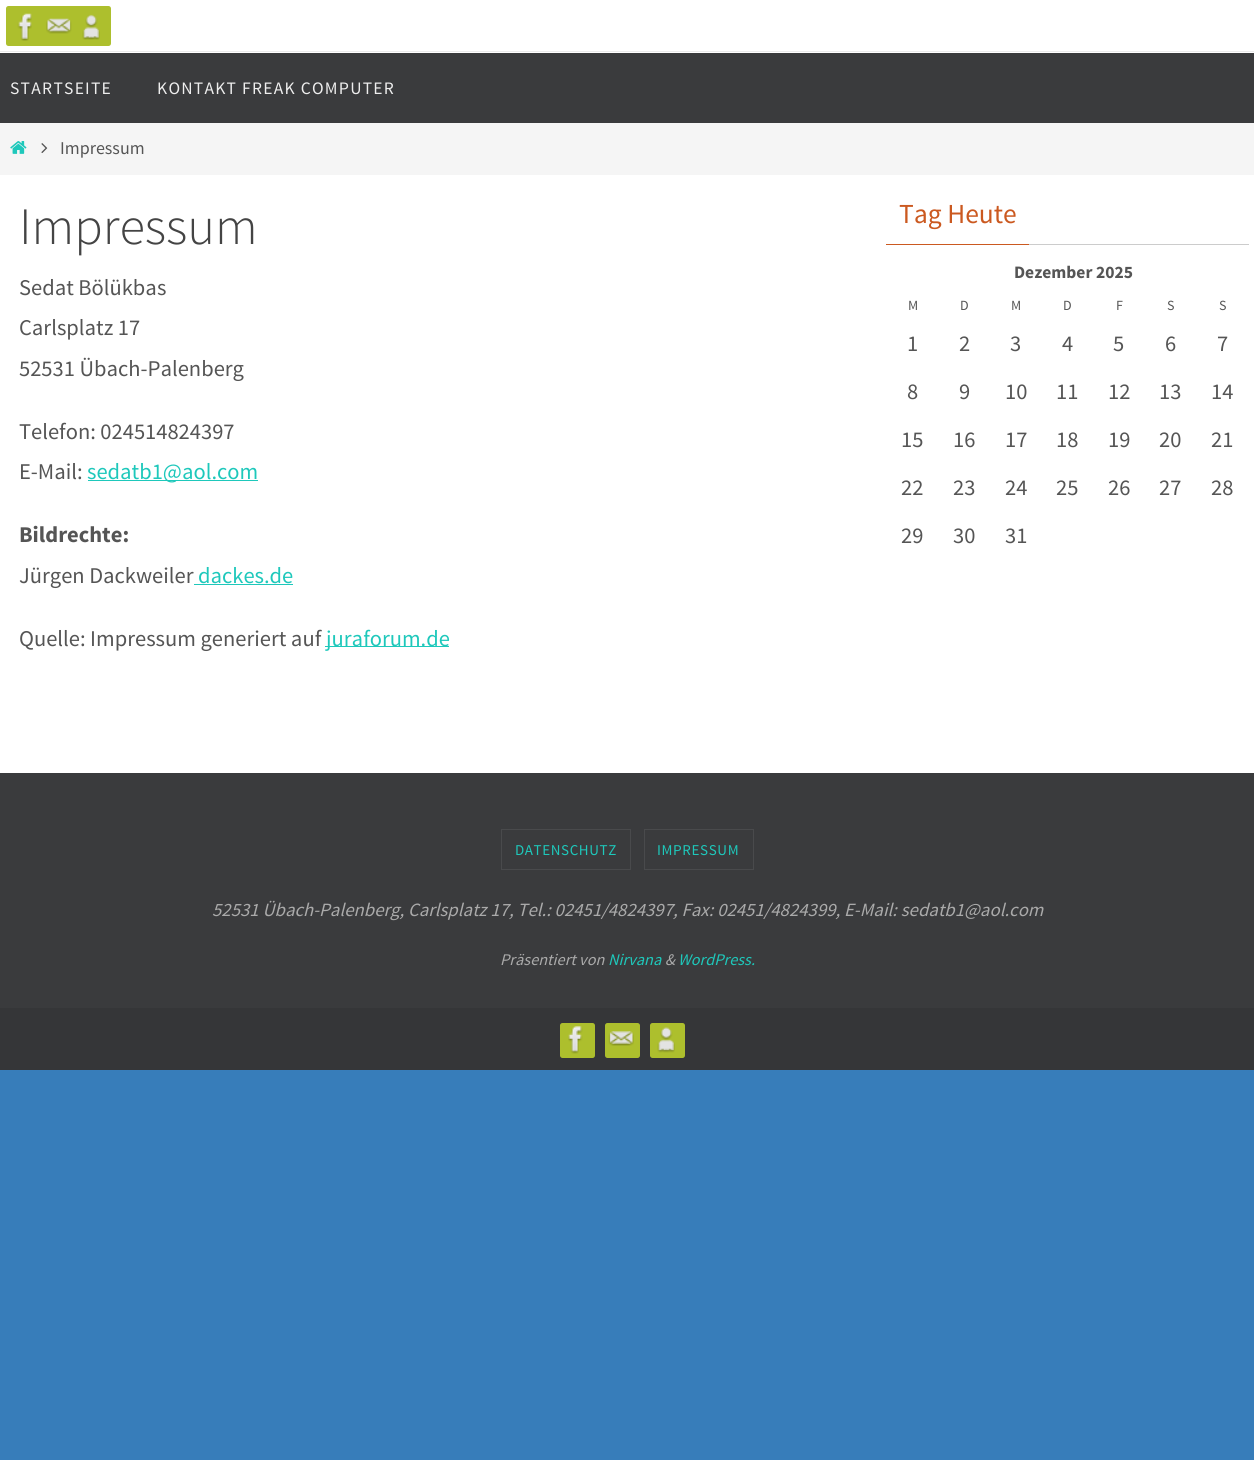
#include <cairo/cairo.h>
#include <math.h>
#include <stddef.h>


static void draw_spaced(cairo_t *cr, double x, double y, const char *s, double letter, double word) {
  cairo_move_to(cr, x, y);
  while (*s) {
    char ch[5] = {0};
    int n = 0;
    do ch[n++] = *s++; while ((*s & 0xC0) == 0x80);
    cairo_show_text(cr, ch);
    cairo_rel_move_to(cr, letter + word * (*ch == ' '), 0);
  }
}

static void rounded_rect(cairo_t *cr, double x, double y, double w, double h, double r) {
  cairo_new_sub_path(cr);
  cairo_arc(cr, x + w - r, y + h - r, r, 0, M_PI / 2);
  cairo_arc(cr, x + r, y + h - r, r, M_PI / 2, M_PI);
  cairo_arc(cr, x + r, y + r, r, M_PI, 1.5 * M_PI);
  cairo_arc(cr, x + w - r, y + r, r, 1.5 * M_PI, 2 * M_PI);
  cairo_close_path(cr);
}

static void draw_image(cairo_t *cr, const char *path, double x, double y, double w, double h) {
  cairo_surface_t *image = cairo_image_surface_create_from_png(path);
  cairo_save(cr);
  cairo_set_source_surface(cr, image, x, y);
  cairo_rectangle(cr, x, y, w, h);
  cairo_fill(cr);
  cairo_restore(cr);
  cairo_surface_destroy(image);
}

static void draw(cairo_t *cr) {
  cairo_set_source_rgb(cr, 55 / 255.0, 125 / 255.0, 186 / 255.0);
  cairo_paint(cr);
  cairo_set_source_rgb(cr, 1, 1, 1);
  cairo_rectangle(cr, 0, 0, 1254, 53);
  cairo_fill(cr);
  cairo_set_source_rgb(cr, 235 / 255.0, 235 / 255.0, 235 / 255.0);
  cairo_rectangle(cr, 0, 51, 1254, 1);
  cairo_fill(cr);
  cairo_set_source_rgb(cr, 173 / 255.0, 191 / 255.0, 45 / 255.0);
  rounded_rect(cr, 6, 6, 40, 40, 2.5);
  cairo_fill(cr);
  draw_image(cr, "images/1.png", 17, 13, 15, 28);
  rounded_rect(cr, 39, 6, 40, 40, 2.5);
  cairo_fill(cr);
  rounded_rect(cr, 71, 6, 40, 40, 2.5);
  cairo_fill(cr);
  draw_image(cr, "images/2.png", 46, 18, 26, 16);
  draw_image(cr, "images/3.png", 82, 14, 18, 26);
  cairo_set_source_rgb(cr, 58 / 255.0, 59 / 255.0, 61 / 255.0);
  cairo_rectangle(cr, 0, 53, 1254, 70);
  cairo_fill(cr);
  cairo_set_source_rgb(cr, 245 / 255.0, 245 / 255.0, 245 / 255.0);
  cairo_rectangle(cr, 0, 123, 1254, 52);
  cairo_fill(cr);
  draw_image(cr, "images/4.png", 10, 141, 17, 13);
  draw_image(cr, "images/5.png", 41, 143, 7, 10);
  cairo_set_source_rgb(cr, 1, 1, 1);
  cairo_rectangle(cr, 0, 175, 1254, 598);
  cairo_fill(cr);
  cairo_set_source_rgb(cr, 30 / 255.0, 200 / 255.0, 187 / 255.0);
  cairo_rectangle(cr, 88, 480, 170, 1);
  cairo_fill(cr);
  cairo_rectangle(cr, 194, 584, 99, 1);
  cairo_fill(cr);
  cairo_rectangle(cr, 325, 646, 124, 1);
  cairo_fill(cr);
  cairo_set_source_rgb(cr, 204 / 255.0, 204 / 255.0, 204 / 255.0);
  cairo_rectangle(cr, 1029, 244, 220, 1);
  cairo_fill(cr);
  cairo_set_source_rgb(cr, 203 / 255.0, 89 / 255.0, 32 / 255.0);
  cairo_rectangle(cr, 886, 244, 143, 1);
  cairo_fill(cr);
  cairo_set_source_rgb(cr, 58 / 255.0, 59 / 255.0, 61 / 255.0);
  cairo_rectangle(cr, 0, 773, 1254, 235);
  cairo_fill(cr);
  cairo_rectangle(cr, 501.5, 829.5, 129, 40);
  cairo_set_source_rgb(cr, 73 / 255.0, 74 / 255.0, 76 / 255.0);
  cairo_set_line_width(cr, 1);
  cairo_stroke(cr);
  cairo_rectangle(cr, 644.5, 829.5, 109, 40);
  cairo_stroke(cr);
  cairo_set_source_rgb(cr, 53 / 255.0, 54 / 255.0, 56 / 255.0);
  cairo_rectangle(cr, 0, 1008, 1254, 62);
  cairo_fill(cr);
  cairo_set_source_rgb(cr, 173 / 255.0, 191 / 255.0, 45 / 255.0);
  rounded_rect(cr, 560, 1023, 35, 35, 2.5);
  cairo_fill(cr);
  draw_image(cr, "images/6.png", 568, 1026, 15, 28);
  rounded_rect(cr, 605, 1023, 35, 35, 2.5);
  cairo_fill(cr);
  draw_image(cr, "images/7.png", 608, 1031, 26, 15);
  rounded_rect(cr, 650, 1023, 35, 35, 2.5);
  cairo_fill(cr);
  draw_image(cr, "images/8.png", 657, 1027, 18, 26);
  cairo_select_font_face(cr, "Source Sans Pro", CAIRO_FONT_SLANT_NORMAL, CAIRO_FONT_WEIGHT_NORMAL);
  cairo_set_font_size(cr, 17.5);
  cairo_set_source_rgb(cr, 238 / 255.0, 238 / 255.0, 238 / 255.0);
  draw_spaced(cr, 10, 94, "STARTSEITE", 1.25, 0);
  draw_spaced(cr, 157, 94, "KONTAKT FREAK COMPUTER", 1.25, 0);
  cairo_set_font_size(cr, 18);
  cairo_set_source_rgb(cr, 85 / 255.0, 85 / 255.0, 85 / 255.0);
  cairo_move_to(cr, 60, 154);
  cairo_show_text(cr, "Impressum");
  cairo_select_font_face(cr, "Source Sans Pro Light", CAIRO_FONT_SLANT_NORMAL, CAIRO_FONT_WEIGHT_NORMAL);
  cairo_set_font_size(cr, 52.5);
  cairo_set_source_rgb(cr, 68 / 255.0, 68 / 255.0, 68 / 255.0);
  cairo_move_to(cr, 19, 244);
  cairo_show_text(cr, "Impressum");
  cairo_select_font_face(cr, "Source Sans Pro", CAIRO_FONT_SLANT_NORMAL, CAIRO_FONT_WEIGHT_NORMAL);
  cairo_set_font_size(cr, 22.5);
  cairo_set_source_rgb(cr, 85 / 255.0, 85 / 255.0, 85 / 255.0);
  cairo_move_to(cr, 19, 295);
  cairo_show_text(cr, "Sedat Bölükbas");
  cairo_move_to(cr, 19, 335);
  cairo_show_text(cr, "Carlsplatz 17");
  cairo_move_to(cr, 19, 376);
  cairo_show_text(cr, "52531 Übach-Palenberg");
  cairo_move_to(cr, 19, 439);
  cairo_show_text(cr, "Telefon: 024514824397");
  cairo_move_to(cr, 19, 479);
  cairo_show_text(cr, "E-Mail:");
  cairo_set_source_rgb(cr, 30 / 255.0, 200 / 255.0, 187 / 255.0);
  cairo_move_to(cr, 87, 479);
  cairo_show_text(cr, "sedatb1@aol.com");
  cairo_select_font_face(cr, "Source Sans Pro", CAIRO_FONT_SLANT_NORMAL, CAIRO_FONT_WEIGHT_BOLD);
  cairo_set_source_rgb(cr, 85 / 255.0, 85 / 255.0, 85 / 255.0);
  cairo_move_to(cr, 19, 542);
  cairo_show_text(cr, "Bildrechte:");
  cairo_select_font_face(cr, "Source Sans Pro", CAIRO_FONT_SLANT_NORMAL, CAIRO_FONT_WEIGHT_NORMAL);
  cairo_move_to(cr, 19, 583);
  cairo_show_text(cr, "Jürgen Dackweiler");
  cairo_set_source_rgb(cr, 30 / 255.0, 200 / 255.0, 187 / 255.0);
  cairo_move_to(cr, 198, 583);
  cairo_show_text(cr, "dackes.de");
  cairo_set_source_rgb(cr, 85 / 255.0, 85 / 255.0, 85 / 255.0);
  cairo_move_to(cr, 19, 646);
  cairo_show_text(cr, "Quelle: Impressum generiert auf");
  cairo_set_source_rgb(cr, 30 / 255.0, 200 / 255.0, 187 / 255.0);
  cairo_move_to(cr, 326, 646);
  cairo_show_text(cr, "juraforum.de");
  cairo_set_font_size(cr, 27.5);
  cairo_set_source_rgb(cr, 203 / 255.0, 89 / 255.0, 32 / 255.0);
  cairo_move_to(cr, 899, 223);
  cairo_show_text(cr, "Tag Heute");
  cairo_select_font_face(cr, "Source Sans Pro", CAIRO_FONT_SLANT_NORMAL, CAIRO_FONT_WEIGHT_BOLD);
  cairo_set_font_size(cr, 17.5);
  cairo_set_source_rgb(cr, 85 / 255.0, 85 / 255.0, 85 / 255.0);
  cairo_move_to(cr, 1014, 278);
  cairo_show_text(cr, "Dezember 2025");
  cairo_select_font_face(cr, "Source Sans Pro", CAIRO_FONT_SLANT_NORMAL, CAIRO_FONT_WEIGHT_NORMAL);
  cairo_set_font_size(cr, 14);
  cairo_move_to(cr, 908, 310);
  cairo_show_text(cr, "M");
  cairo_move_to(cr, 960, 310);
  cairo_show_text(cr, "D");
  cairo_move_to(cr, 1011, 310);
  cairo_show_text(cr, "M");
  cairo_move_to(cr, 1063, 310);
  cairo_show_text(cr, "D");
  cairo_move_to(cr, 1116, 310);
  cairo_show_text(cr, "F");
  cairo_move_to(cr, 1167, 310);
  cairo_show_text(cr, "S");
  cairo_move_to(cr, 1219, 310);
  cairo_show_text(cr, "S");
  cairo_set_font_size(cr, 22.5);
  cairo_move_to(cr, 907, 351);
  cairo_show_text(cr, "1");
  cairo_move_to(cr, 959, 351);
  cairo_show_text(cr, "2");
  cairo_move_to(cr, 1010, 351);
  cairo_show_text(cr, "3");
  cairo_move_to(cr, 1062, 351);
  cairo_show_text(cr, "4");
  cairo_move_to(cr, 1113, 351);
  cairo_show_text(cr, "5");
  cairo_move_to(cr, 1165, 351);
  cairo_show_text(cr, "6");
  cairo_move_to(cr, 1217, 351);
  cairo_show_text(cr, "7");
  cairo_move_to(cr, 907, 399);
  cairo_show_text(cr, "8");
  cairo_move_to(cr, 959, 399);
  cairo_show_text(cr, "9");
  cairo_move_to(cr, 1005, 399);
  cairo_show_text(cr, "10");
  cairo_move_to(cr, 1056, 399);
  cairo_show_text(cr, "11");
  cairo_move_to(cr, 1108, 399);
  cairo_show_text(cr, "12");
  cairo_move_to(cr, 1159, 399);
  cairo_show_text(cr, "13");
  cairo_move_to(cr, 1211, 399);
  cairo_show_text(cr, "14");
  cairo_move_to(cr, 901, 447);
  cairo_show_text(cr, "15");
  cairo_move_to(cr, 953, 447);
  cairo_show_text(cr, "16");
  cairo_move_to(cr, 1005, 447);
  cairo_show_text(cr, "17");
  cairo_move_to(cr, 1056, 447);
  cairo_show_text(cr, "18");
  cairo_move_to(cr, 1108, 447);
  cairo_show_text(cr, "19");
  cairo_move_to(cr, 1159, 447);
  cairo_show_text(cr, "20");
  cairo_move_to(cr, 1211, 447);
  cairo_show_text(cr, "21");
  cairo_move_to(cr, 901, 495);
  cairo_show_text(cr, "22");
  cairo_move_to(cr, 953, 495);
  cairo_show_text(cr, "23");
  cairo_move_to(cr, 1005, 495);
  cairo_show_text(cr, "24");
  cairo_move_to(cr, 1056, 495);
  cairo_show_text(cr, "25");
  cairo_move_to(cr, 1108, 495);
  cairo_show_text(cr, "26");
  cairo_move_to(cr, 1159, 495);
  cairo_show_text(cr, "27");
  cairo_move_to(cr, 1211, 495);
  cairo_show_text(cr, "28");
  cairo_move_to(cr, 901, 543);
  cairo_show_text(cr, "29");
  cairo_move_to(cr, 953, 543);
  cairo_show_text(cr, "30");
  cairo_move_to(cr, 1005, 543);
  cairo_show_text(cr, "31");
  cairo_set_font_size(cr, 15);
  cairo_set_source_rgb(cr, 30 / 255.0, 200 / 255.0, 187 / 255.0);
  draw_spaced(cr, 515, 855, "DATENSCHUTZ", 0.6, 0);
  draw_spaced(cr, 657, 855, "IMPRESSUM", 0.6, 0);
  cairo_select_font_face(cr, "Source Sans Pro", CAIRO_FONT_SLANT_ITALIC, CAIRO_FONT_WEIGHT_NORMAL);
  cairo_set_font_size(cr, 18.75);
  cairo_set_source_rgb(cr, 170 / 255.0, 170 / 255.0, 170 / 255.0);
  cairo_move_to(cr, 212, 916);
  cairo_show_text(cr, "52531 Übach-Palenberg, Carlsplatz 17, Tel.: 02451/4824397, Fax: 02451/4824399, E-Mail: sedatb1@aol.com");
  cairo_set_font_size(cr, 16.25);
  cairo_move_to(cr, 500, 965);
  cairo_show_text(cr, "Präsentiert von");
  cairo_set_source_rgb(cr, 30 / 255.0, 200 / 255.0, 187 / 255.0);
  cairo_move_to(cr, 608, 965);
  cairo_show_text(cr, "Nirvana");
  cairo_set_source_rgb(cr, 170 / 255.0, 170 / 255.0, 170 / 255.0);
  cairo_move_to(cr, 665, 965);
  cairo_show_text(cr, "&");
  cairo_set_source_rgb(cr, 30 / 255.0, 200 / 255.0, 187 / 255.0);
  cairo_move_to(cr, 678, 965);
  cairo_show_text(cr, "WordPress.");
}

int main(void) {
  cairo_surface_t *surface = cairo_image_surface_create(CAIRO_FORMAT_RGB24, 1254, 1460);
  cairo_t *cr = cairo_create(surface);
  cairo_font_options_t *options = cairo_font_options_create();
  cairo_font_options_set_hint_metrics(options, CAIRO_HINT_METRICS_OFF);
  cairo_font_options_set_hint_style(options, CAIRO_HINT_STYLE_NONE);
  cairo_set_font_options(cr, options);
  cairo_set_miter_limit(cr, 4);
  draw(cr);
  cairo_surface_write_to_png(surface, "out.png");
  cairo_font_options_destroy(options);
  cairo_destroy(cr);
  cairo_surface_destroy(surface);
  return 0;
}
